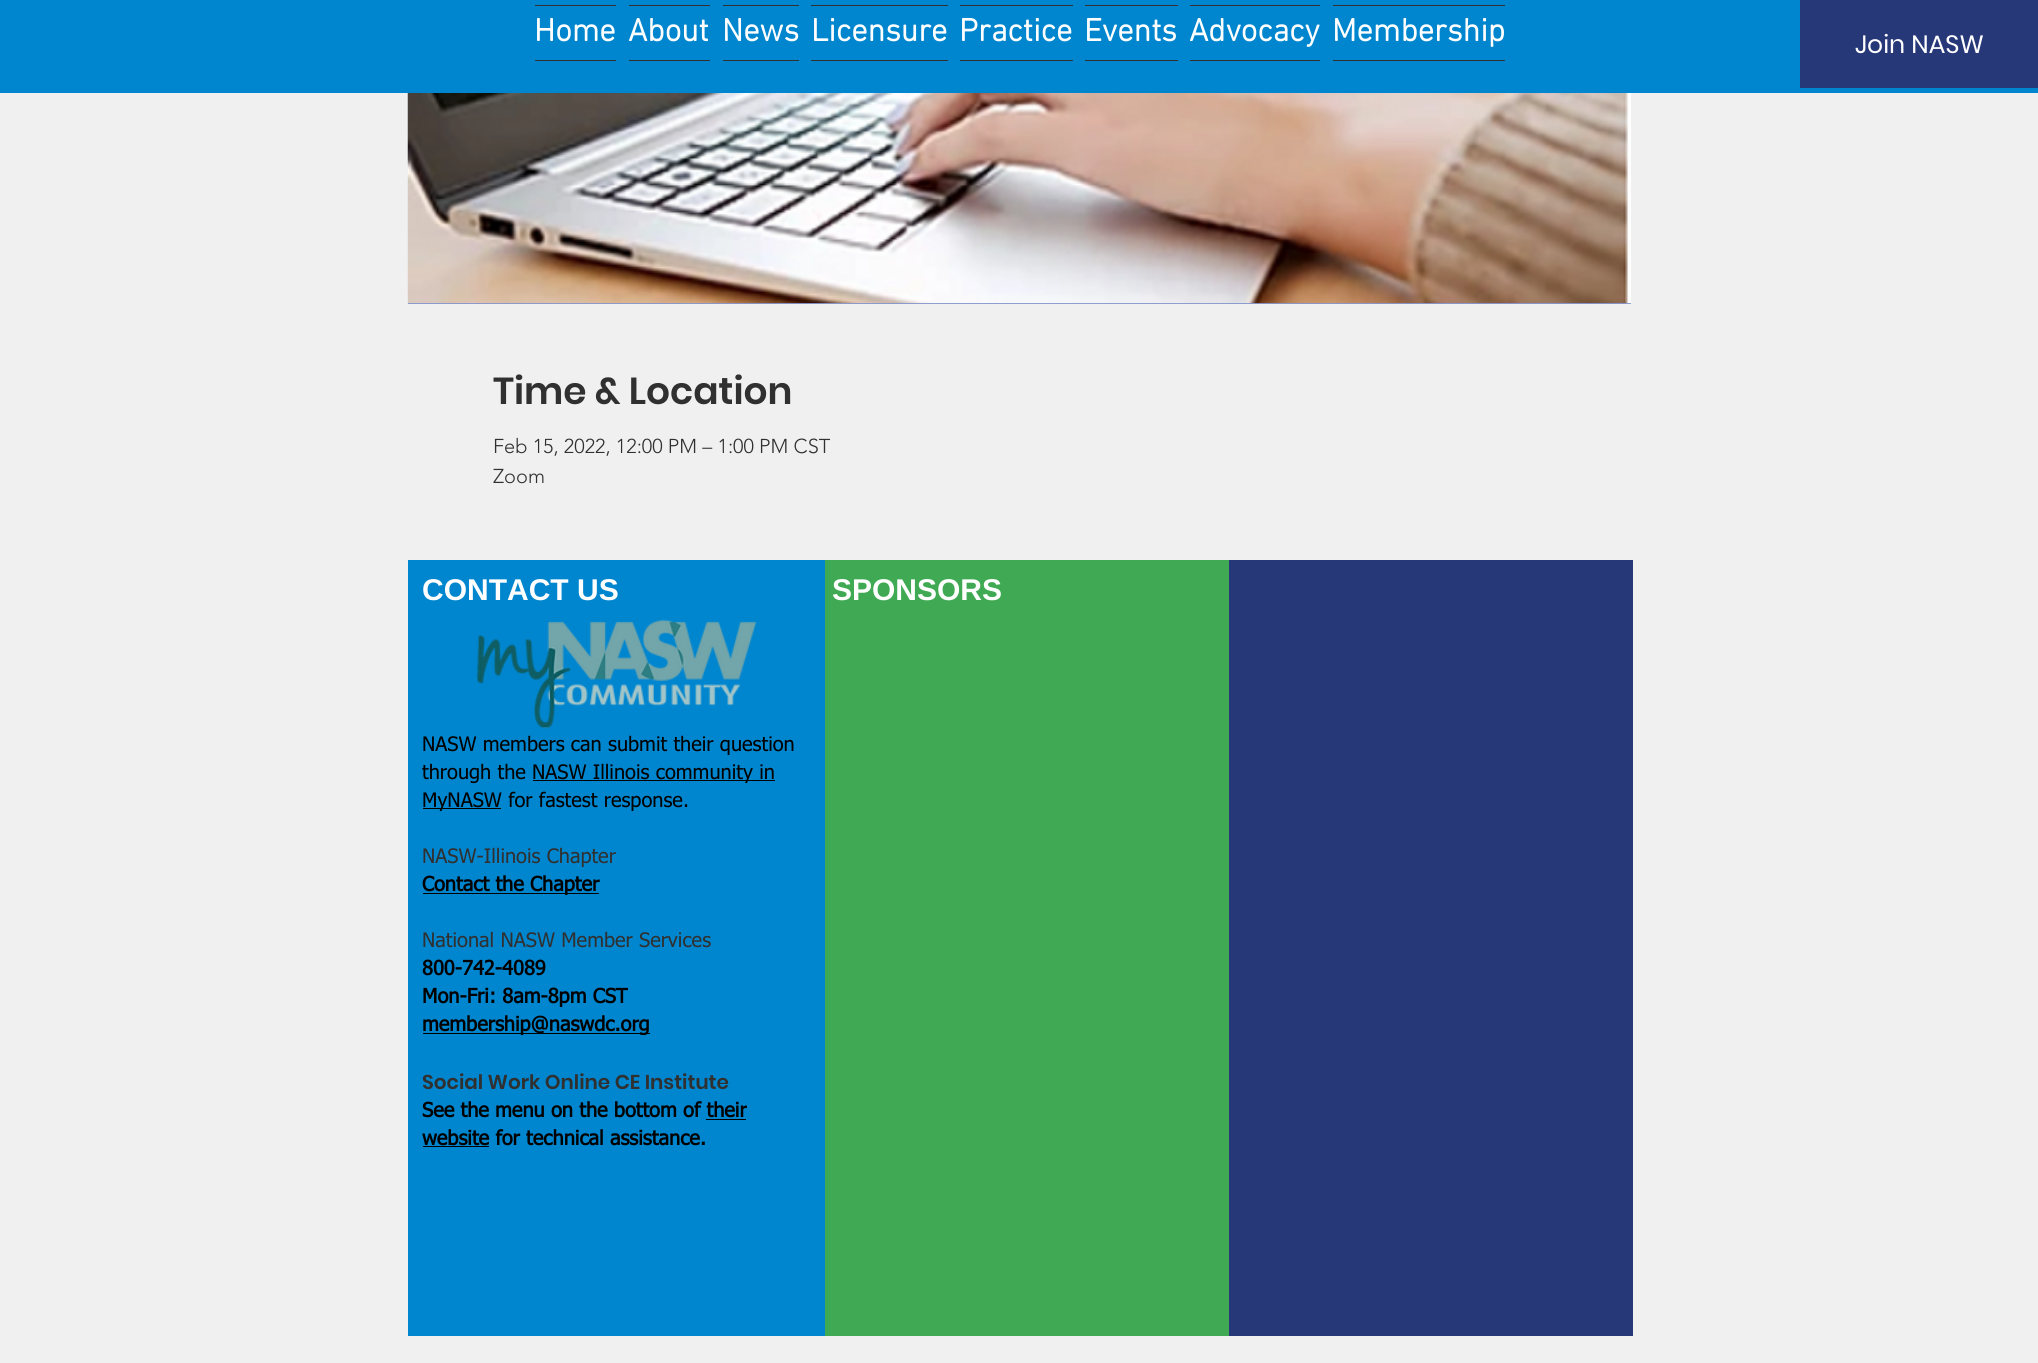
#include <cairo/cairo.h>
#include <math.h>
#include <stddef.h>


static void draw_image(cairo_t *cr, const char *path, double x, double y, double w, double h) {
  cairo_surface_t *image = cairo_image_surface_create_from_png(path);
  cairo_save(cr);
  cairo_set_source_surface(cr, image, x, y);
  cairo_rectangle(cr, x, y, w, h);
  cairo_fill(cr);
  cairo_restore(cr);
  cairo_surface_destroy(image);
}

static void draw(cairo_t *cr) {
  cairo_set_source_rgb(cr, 240 / 255.0, 240 / 255.0, 240 / 255.0);
  cairo_paint(cr);
  cairo_set_source_rgb(cr, 0, 134 / 255.0, 207 / 255.0);
  cairo_rectangle(cr, 0, 0, 2038, 93);
  cairo_fill(cr);
  cairo_set_source_rgb(cr, 48 / 255.0, 48 / 255.0, 48 / 255.0);
  cairo_rectangle(cr, 535, 5, 81, 1);
  cairo_fill(cr);
  cairo_rectangle(cr, 535, 60, 81, 1);
  cairo_fill(cr);
  cairo_rectangle(cr, 629, 5, 81, 1);
  cairo_fill(cr);
  cairo_rectangle(cr, 629, 60, 81, 1);
  cairo_fill(cr);
  cairo_rectangle(cr, 723, 5, 76, 1);
  cairo_fill(cr);
  cairo_rectangle(cr, 723, 60, 76, 1);
  cairo_fill(cr);
  cairo_rectangle(cr, 811, 5, 137, 1);
  cairo_fill(cr);
  cairo_rectangle(cr, 811, 60, 137, 1);
  cairo_fill(cr);
  cairo_rectangle(cr, 960, 5, 113, 1);
  cairo_fill(cr);
  cairo_rectangle(cr, 960, 60, 113, 1);
  cairo_fill(cr);
  cairo_rectangle(cr, 1085, 5, 93, 1);
  cairo_fill(cr);
  cairo_rectangle(cr, 1085, 60, 93, 1);
  cairo_fill(cr);
  cairo_rectangle(cr, 1190, 5, 130, 1);
  cairo_fill(cr);
  cairo_rectangle(cr, 1190, 60, 130, 1);
  cairo_fill(cr);
  cairo_rectangle(cr, 1333, 5, 172, 1);
  cairo_fill(cr);
  cairo_rectangle(cr, 1333, 60, 172, 1);
  cairo_fill(cr);
  cairo_set_source_rgb(cr, 39 / 255.0, 56 / 255.0, 120 / 255.0);
  cairo_rectangle(cr, 1800, 0, 238, 88);
  cairo_fill(cr);
  cairo_set_source_rgb(cr, 136 / 255.0, 150 / 255.0, 205 / 255.0);
  cairo_rectangle(cr, 408, 303, 1223, 1);
  cairo_fill(cr);
  draw_image(cr, "images/1.png", 407, 93, 1224, 211);
  cairo_set_source_rgb(cr, 0, 134 / 255.0, 207 / 255.0);
  cairo_rectangle(cr, 408, 560, 417, 776);
  cairo_fill(cr);
  draw_image(cr, "images/2.png", 476, 619, 281, 110);
  cairo_set_source_rgb(cr, 0, 0, 0);
  cairo_rectangle(cr, 533, 780, 242, 1);
  cairo_fill(cr);
  cairo_rectangle(cr, 423, 808, 78, 1);
  cairo_fill(cr);
  cairo_rectangle(cr, 423, 893, 176, 1);
  cairo_fill(cr);
  cairo_rectangle(cr, 423, 1033, 227, 1);
  cairo_fill(cr);
  cairo_rectangle(cr, 706, 1119, 40, 1);
  cairo_fill(cr);
  cairo_rectangle(cr, 423, 1146, 66, 1);
  cairo_fill(cr);
  cairo_set_source_rgb(cr, 63 / 255.0, 170 / 255.0, 83 / 255.0);
  cairo_rectangle(cr, 825, 560, 404, 776);
  cairo_fill(cr);
  cairo_set_source_rgb(cr, 39 / 255.0, 56 / 255.0, 120 / 255.0);
  cairo_rectangle(cr, 1229, 560, 404, 776);
  cairo_fill(cr);
  cairo_select_font_face(cr, "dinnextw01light", CAIRO_FONT_SLANT_NORMAL, CAIRO_FONT_WEIGHT_BOLD);
  cairo_set_font_size(cr, 32.5);
  cairo_set_source_rgb(cr, 1, 1, 1);
  cairo_move_to(cr, 534, 41);
  cairo_show_text(cr, "Home");
  cairo_move_to(cr, 628, 41);
  cairo_show_text(cr, "About");
  cairo_move_to(cr, 722, 41);
  cairo_show_text(cr, "News");
  cairo_move_to(cr, 811, 41);
  cairo_show_text(cr, "Licensure");
  cairo_move_to(cr, 959, 41);
  cairo_show_text(cr, "Practice");
  cairo_move_to(cr, 1084, 41);
  cairo_show_text(cr, "Events");
  cairo_move_to(cr, 1189, 41);
  cairo_show_text(cr, "Advocacy");
  cairo_move_to(cr, 1332, 41);
  cairo_show_text(cr, "Membership");
  cairo_select_font_face(cr, "Poppins", CAIRO_FONT_SLANT_NORMAL, CAIRO_FONT_WEIGHT_NORMAL);
  cairo_set_font_size(cr, 25);
  cairo_move_to(cr, 1855, 53);
  cairo_show_text(cr, "Join NASW");
  cairo_select_font_face(cr, "Poppins SemiBold", CAIRO_FONT_SLANT_NORMAL, CAIRO_FONT_WEIGHT_NORMAL);
  cairo_set_font_size(cr, 37.5);
  cairo_set_source_rgb(cr, 48 / 255.0, 48 / 255.0, 48 / 255.0);
  cairo_move_to(cr, 493, 404);
  cairo_show_text(cr, "Time & Location");
  cairo_select_font_face(cr, "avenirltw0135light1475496 Light", CAIRO_FONT_SLANT_NORMAL, CAIRO_FONT_WEIGHT_NORMAL);
  cairo_set_font_size(cr, 20);
  cairo_move_to(cr, 493, 453);
  cairo_show_text(cr, "Feb 15, 2022, 12:00 PM – 1:00 PM CST");
  cairo_move_to(cr, 493, 483);
  cairo_show_text(cr, "Zoom");
  cairo_select_font_face(cr, "Liberation Sans", CAIRO_FONT_SLANT_NORMAL, CAIRO_FONT_WEIGHT_BOLD);
  cairo_set_font_size(cr, 30);
  cairo_set_source_rgb(cr, 1, 1, 1);
  cairo_move_to(cr, 422, 600);
  cairo_show_text(cr, "CONTACT US");
  cairo_select_font_face(cr, "tahoma", CAIRO_FONT_SLANT_NORMAL, CAIRO_FONT_WEIGHT_NORMAL);
  cairo_set_font_size(cr, 20);
  cairo_set_source_rgb(cr, 0, 0, 0);
  cairo_move_to(cr, 422, 751);
  cairo_show_text(cr, "NASW members can submit their question");
  cairo_move_to(cr, 422, 779);
  cairo_show_text(cr, "through the");
  cairo_move_to(cr, 532, 779);
  cairo_show_text(cr, "NASW Illinois community in");
  cairo_move_to(cr, 422, 807);
  cairo_show_text(cr, "MyNASW for fastest response.");
  cairo_set_source_rgb(cr, 48 / 255.0, 48 / 255.0, 48 / 255.0);
  cairo_move_to(cr, 422, 863);
  cairo_show_text(cr, "NASW-Illinois Chapter");
  cairo_select_font_face(cr, "tahoma", CAIRO_FONT_SLANT_NORMAL, CAIRO_FONT_WEIGHT_BOLD);
  cairo_set_source_rgb(cr, 0, 0, 0);
  cairo_move_to(cr, 422, 891);
  cairo_show_text(cr, "Contact the Chapter");
  cairo_select_font_face(cr, "tahoma", CAIRO_FONT_SLANT_NORMAL, CAIRO_FONT_WEIGHT_NORMAL);
  cairo_set_source_rgb(cr, 48 / 255.0, 48 / 255.0, 48 / 255.0);
  cairo_move_to(cr, 422, 947);
  cairo_show_text(cr, "National NASW Member Services");
  cairo_select_font_face(cr, "tahoma", CAIRO_FONT_SLANT_NORMAL, CAIRO_FONT_WEIGHT_BOLD);
  cairo_set_source_rgb(cr, 0, 0, 0);
  cairo_move_to(cr, 422, 975);
  cairo_show_text(cr, "800-742-4089");
  cairo_move_to(cr, 422, 1003);
  cairo_show_text(cr, "Mon-Fri: 8am-8pm CST");
  cairo_move_to(cr, 422, 1031);
  cairo_show_text(cr, "membership@naswdc.org");
  cairo_select_font_face(cr, "Poppins SemiBold", CAIRO_FONT_SLANT_NORMAL, CAIRO_FONT_WEIGHT_NORMAL);
  cairo_set_source_rgb(cr, 48 / 255.0, 48 / 255.0, 48 / 255.0);
  cairo_move_to(cr, 422, 1089);
  cairo_show_text(cr, "Social Work Online CE Institute");
  cairo_select_font_face(cr, "tahoma", CAIRO_FONT_SLANT_NORMAL, CAIRO_FONT_WEIGHT_BOLD);
  cairo_set_source_rgb(cr, 0, 0, 0);
  cairo_move_to(cr, 422, 1117);
  cairo_show_text(cr, "See the menu on the bottom of their");
  cairo_move_to(cr, 422, 1145);
  cairo_show_text(cr, "website for technical assistance.");
  cairo_select_font_face(cr, "Liberation Sans", CAIRO_FONT_SLANT_NORMAL, CAIRO_FONT_WEIGHT_BOLD);
  cairo_set_font_size(cr, 30);
  cairo_set_source_rgb(cr, 1, 1, 1);
  cairo_move_to(cr, 832, 600);
  cairo_show_text(cr, "SPONSORS");
}

int main(void) {
  cairo_surface_t *surface = cairo_image_surface_create(CAIRO_FORMAT_RGB24, 2038, 1363);
  cairo_t *cr = cairo_create(surface);
  cairo_font_options_t *options = cairo_font_options_create();
  cairo_font_options_set_hint_metrics(options, CAIRO_HINT_METRICS_OFF);
  cairo_font_options_set_hint_style(options, CAIRO_HINT_STYLE_NONE);
  cairo_set_font_options(cr, options);
  cairo_set_miter_limit(cr, 4);
  draw(cr);
  cairo_surface_write_to_png(surface, "out.png");
  cairo_font_options_destroy(options);
  cairo_destroy(cr);
  cairo_surface_destroy(surface);
  return 0;
}
